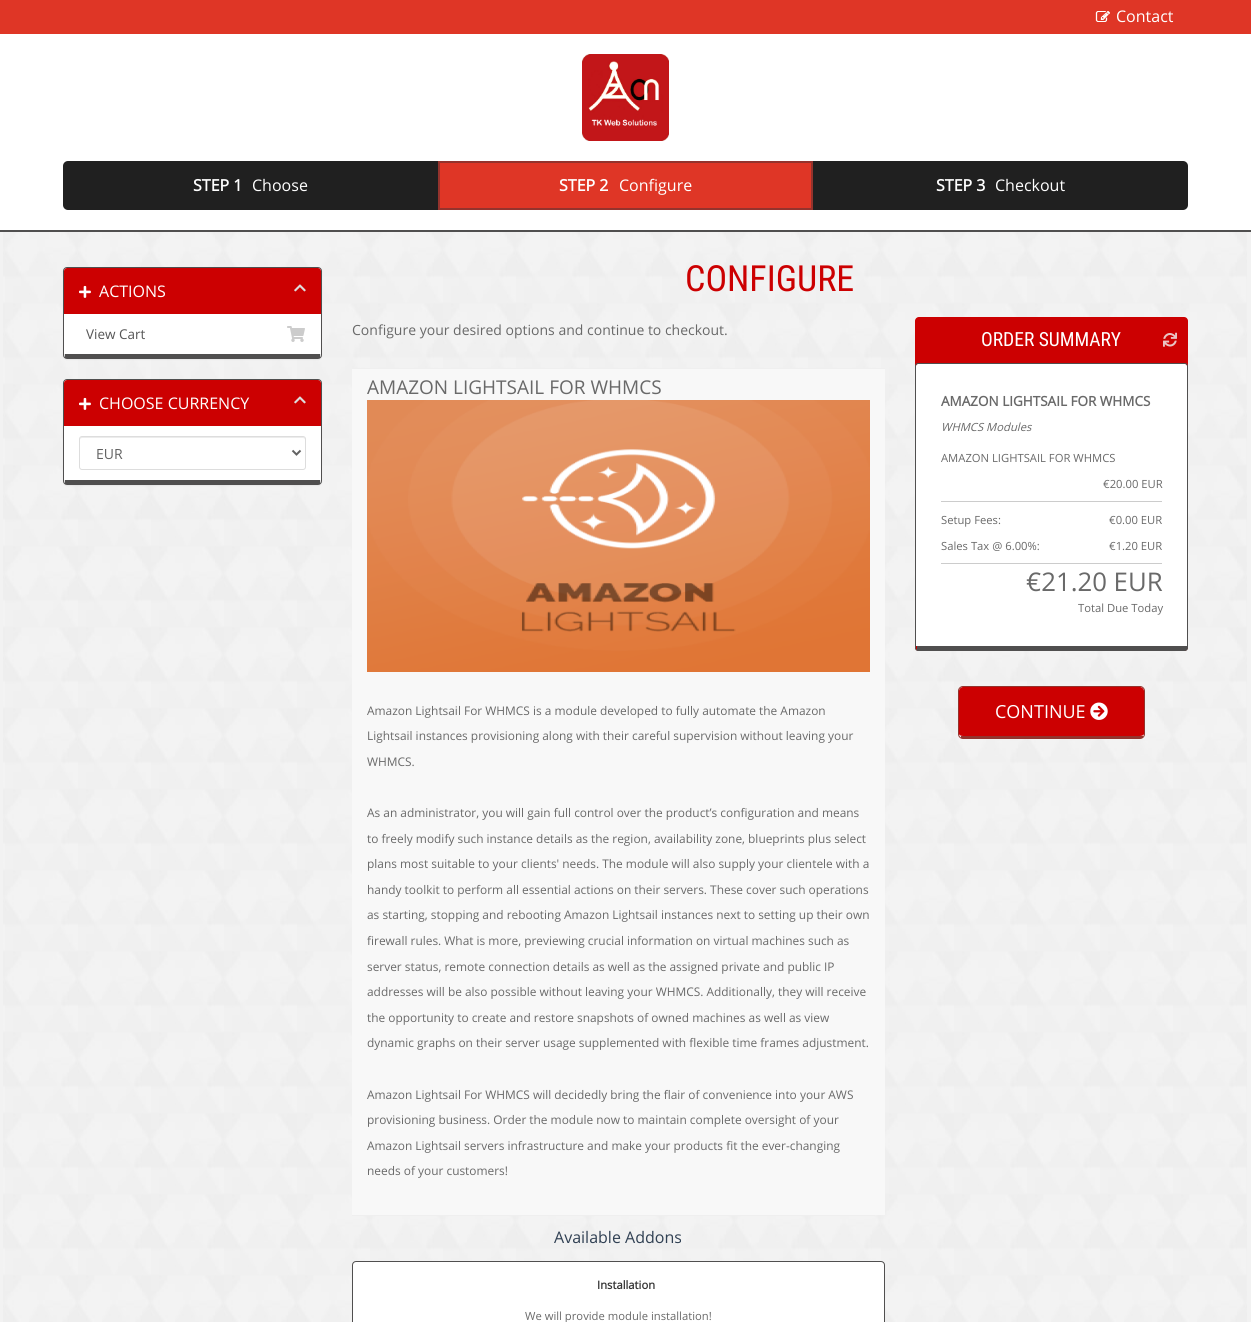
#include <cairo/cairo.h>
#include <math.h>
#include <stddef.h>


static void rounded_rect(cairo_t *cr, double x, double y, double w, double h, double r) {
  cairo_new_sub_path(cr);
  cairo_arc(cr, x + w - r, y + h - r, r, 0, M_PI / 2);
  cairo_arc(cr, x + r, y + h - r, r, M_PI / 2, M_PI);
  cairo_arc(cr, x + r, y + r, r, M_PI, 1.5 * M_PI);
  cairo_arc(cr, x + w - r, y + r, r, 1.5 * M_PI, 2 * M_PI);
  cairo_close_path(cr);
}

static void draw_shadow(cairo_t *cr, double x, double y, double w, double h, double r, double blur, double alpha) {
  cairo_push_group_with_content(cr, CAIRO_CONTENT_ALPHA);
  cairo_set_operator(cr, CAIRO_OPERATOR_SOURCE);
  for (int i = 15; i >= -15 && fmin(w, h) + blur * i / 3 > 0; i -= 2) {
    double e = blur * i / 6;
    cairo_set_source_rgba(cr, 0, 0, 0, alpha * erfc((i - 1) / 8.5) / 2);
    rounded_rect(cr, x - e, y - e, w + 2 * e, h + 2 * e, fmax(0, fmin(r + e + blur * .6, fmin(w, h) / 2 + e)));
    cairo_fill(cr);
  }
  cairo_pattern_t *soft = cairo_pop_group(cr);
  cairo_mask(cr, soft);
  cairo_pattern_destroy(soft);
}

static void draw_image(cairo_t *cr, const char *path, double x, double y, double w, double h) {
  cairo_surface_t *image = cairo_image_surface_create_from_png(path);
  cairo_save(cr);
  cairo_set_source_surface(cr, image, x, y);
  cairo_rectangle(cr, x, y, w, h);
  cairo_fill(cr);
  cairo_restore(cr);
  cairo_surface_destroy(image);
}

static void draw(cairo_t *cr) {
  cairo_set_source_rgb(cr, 242 / 255.0, 242 / 255.0, 242 / 255.0);
  cairo_paint(cr);
  draw_image(cr, "images/1.png", 3, 232, 1244, 1090);
  cairo_set_source_rgb(cr, 223 / 255.0, 54 / 255.0, 38 / 255.0);
  cairo_rectangle(cr, 0, 0, 1251, 34);
  cairo_fill(cr);
  draw_image(cr, "images/2.png", 1095, 11, 15, 11);
  cairo_set_source_rgb(cr, 1, 1, 1);
  cairo_rectangle(cr, 0, 34, 1251, 196);
  cairo_fill(cr);
  cairo_set_source_rgb(cr, 80 / 255.0, 79 / 255.0, 79 / 255.0);
  cairo_rectangle(cr, 0, 230, 1251, 2);
  cairo_fill(cr);
  draw_image(cr, "images/3.png", 582, 54, 87, 87);
  cairo_set_source_rgb(cr, 32 / 255.0, 32 / 255.0, 32 / 255.0);
  rounded_rect(cr, 63, 161, 1125, 49, 5);
  cairo_fill(cr);
  cairo_set_source_rgb(cr, 223 / 255.0, 54 / 255.0, 38 / 255.0);
  cairo_rectangle(cr, 439, 162, 373, 47);
  cairo_fill_preserve(cr);
  cairo_set_source_rgb(cr, 148 / 255.0, 51 / 255.0, 45 / 255.0);
  cairo_stroke(cr);
  cairo_set_source_rgb(cr, 0, 0, 0);
  draw_shadow(cr, 63, 268, 259, 92, 4, 0.5, 0.05);
  cairo_set_source_rgb(cr, 1, 1, 1);
  cairo_new_path(cr);
  cairo_move_to(cr, 67, 268);
  cairo_line_to(cr, 318, 268);
  cairo_curve_to(cr, 320, 268, 321, 269, 321, 271);
  cairo_line_to(cr, 321, 354);
  cairo_line_to(cr, 64, 354);
  cairo_line_to(cr, 64, 271);
  cairo_curve_to(cr, 64, 269, 65, 268, 67, 268);
  cairo_close_path(cr);
  cairo_fill(cr);
  rounded_rect(cr, 63.5, 267.5, 258, 91, 3.5);
  cairo_set_source_rgb(cr, 80 / 255.0, 79 / 255.0, 79 / 255.0);
  cairo_set_line_width(cr, 1);
  cairo_stroke(cr);
  cairo_rectangle(cr, 65, 354, 255, 4);
  cairo_fill(cr);
  cairo_set_source_rgb(cr, 204 / 255.0, 0, 1 / 255.0);
  cairo_new_path(cr);
  cairo_move_to(cr, 67, 268);
  cairo_line_to(cr, 318, 268);
  cairo_curve_to(cr, 319.5, 268, 321, 269.5, 321, 271);
  cairo_line_to(cr, 321, 314);
  cairo_line_to(cr, 64, 314);
  cairo_line_to(cr, 64, 271);
  cairo_curve_to(cr, 64, 269.5, 65.5, 268, 67, 268);
  cairo_close_path(cr);
  cairo_fill(cr);
  draw_image(cr, "images/4.png", 79, 285, 12, 13);
  draw_image(cr, "images/5.png", 294, 284, 12, 8);
  draw_image(cr, "images/6.png", 287, 326, 18, 16);
  cairo_set_source_rgb(cr, 0, 0, 0);
  draw_shadow(cr, 63, 380, 259, 106, 4, 0.5, 0.05);
  cairo_set_source_rgb(cr, 1, 1, 1);
  cairo_new_path(cr);
  cairo_move_to(cr, 67, 380);
  cairo_line_to(cr, 318, 380);
  cairo_curve_to(cr, 320, 380, 321, 381, 321, 383);
  cairo_line_to(cr, 321, 480);
  cairo_line_to(cr, 64, 480);
  cairo_line_to(cr, 64, 383);
  cairo_curve_to(cr, 64, 381, 65, 380, 67, 380);
  cairo_close_path(cr);
  cairo_fill(cr);
  rounded_rect(cr, 63.5, 379.5, 258, 105, 3.5);
  cairo_set_source_rgb(cr, 80 / 255.0, 79 / 255.0, 79 / 255.0);
  cairo_stroke(cr);
  cairo_rectangle(cr, 65, 480, 255, 4);
  cairo_fill(cr);
  cairo_set_source_rgb(cr, 204 / 255.0, 0, 1 / 255.0);
  cairo_new_path(cr);
  cairo_move_to(cr, 67, 380);
  cairo_line_to(cr, 318, 380);
  cairo_curve_to(cr, 319.5, 380, 321, 381.5, 321, 383);
  cairo_line_to(cr, 321, 426);
  cairo_line_to(cr, 64, 426);
  cairo_line_to(cr, 64, 383);
  cairo_curve_to(cr, 64, 381.5, 65.5, 380, 67, 380);
  cairo_close_path(cr);
  cairo_fill(cr);
  draw_image(cr, "images/4.png", 79, 397, 12, 13);
  draw_image(cr, "images/5.png", 294, 396, 12, 8);
  cairo_set_source_rgb(cr, 236 / 255.0, 236 / 255.0, 236 / 255.0);
  cairo_new_path(cr);
  cairo_move_to(cr, 82, 438);
  cairo_line_to(cr, 303, 438);
  cairo_curve_to(cr, 304, 438, 305, 439, 305, 440);
  cairo_curve_to(cr, 305, 439, 305, 437, 303, 437);
  cairo_line_to(cr, 81, 437);
  cairo_curve_to(cr, 80, 438, 80, 439, 80, 440);
  cairo_curve_to(cr, 80, 439, 81, 438, 82, 438);
  cairo_close_path(cr);
  cairo_fill(cr);
  rounded_rect(cr, 79.5, 436.5, 226, 33, 2.5);
  cairo_set_source_rgb(cr, 221 / 255.0, 221 / 255.0, 221 / 255.0);
  cairo_stroke(cr);
  cairo_new_path(cr);
  cairo_move_to(cr, 292.5, 450.5);
  cairo_line_to(cr, 296.5, 454.5);
  cairo_line_to(cr, 300.5, 450.5);
  cairo_set_source_rgb(cr, 98 / 255.0, 98 / 255.0, 98 / 255.0);
  cairo_set_line_width(cr, 2);
  cairo_stroke(cr);
  cairo_set_source_rgb(cr, 248 / 255.0, 248 / 255.0, 248 / 255.0);
  cairo_rectangle(cr, 352, 369, 533, 846);
  cairo_fill(cr);
  cairo_set_source_rgb(cr, 239 / 255.0, 239 / 255.0, 239 / 255.0);
  cairo_rectangle(cr, 352, 368, 533, 1);
  cairo_fill(cr);
  cairo_rectangle(cr, 352, 1215, 523, 1);
  cairo_fill(cr);
  draw_image(cr, "images/7.png", 367, 400, 503, 272);
  cairo_set_source_rgb(cr, 1, 1, 1);
  cairo_new_path(cr);
  cairo_move_to(cr, 356, 1262);
  cairo_line_to(cr, 881, 1262);
  cairo_curve_to(cr, 883, 1262, 884, 1263, 884, 1265);
  cairo_line_to(cr, 884, 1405);
  cairo_line_to(cr, 353, 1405);
  cairo_line_to(cr, 353, 1265);
  cairo_curve_to(cr, 353, 1263, 354, 1262, 356, 1262);
  cairo_close_path(cr);
  cairo_fill(cr);
  rounded_rect(cr, 352.5, 1261.5, 532, 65, 3.5);
  cairo_set_source_rgb(cr, 80 / 255.0, 79 / 255.0, 79 / 255.0);
  cairo_set_line_width(cr, 1);
  cairo_stroke(cr);
  cairo_set_source_rgb(cr, 204 / 255.0, 0, 1 / 255.0);
  rounded_rect(cr, 915, 317, 273, 334, 4);
  cairo_fill(cr);
  draw_image(cr, "images/8.png", 1163, 332, 14, 15);
  cairo_set_source_rgb(cr, 1, 1, 1);
  cairo_new_path(cr);
  cairo_move_to(cr, 918, 364);
  cairo_line_to(cr, 1185, 364);
  cairo_curve_to(cr, 1186, 364, 1187, 365, 1187, 366);
  cairo_line_to(cr, 1187, 646);
  cairo_line_to(cr, 916, 646);
  cairo_line_to(cr, 916, 366);
  cairo_curve_to(cr, 916, 365, 917, 364, 918, 364);
  cairo_close_path(cr);
  cairo_fill(cr);
  rounded_rect(cr, 915.5, 363.5, 272, 287, 2.5);
  cairo_set_source_rgb(cr, 80 / 255.0, 79 / 255.0, 79 / 255.0);
  cairo_stroke(cr);
  cairo_rectangle(cr, 917, 646, 270, 4);
  cairo_fill(cr);
  cairo_set_source_rgb(cr, 204 / 255.0, 204 / 255.0, 204 / 255.0);
  cairo_rectangle(cr, 941, 501, 221, 1);
  cairo_fill(cr);
  cairo_rectangle(cr, 941, 563, 221, 1);
  cairo_fill(cr);
  cairo_set_source_rgb(cr, 204 / 255.0, 0, 1 / 255.0);
  cairo_new_path(cr);
  cairo_move_to(cr, 963, 687);
  cairo_line_to(cr, 1140, 687);
  cairo_curve_to(cr, 1142, 687, 1144, 689, 1144, 691);
  cairo_line_to(cr, 1144, 734);
  cairo_curve_to(cr, 1144, 735, 1142, 736, 1140, 736);
  cairo_line_to(cr, 963, 736);
  cairo_curve_to(cr, 961, 736, 959, 735, 959, 734);
  cairo_line_to(cr, 959, 691);
  cairo_curve_to(cr, 959, 689, 961, 687, 963, 687);
  cairo_close_path(cr);
  cairo_fill(cr);
  rounded_rect(cr, 958.5, 686.5, 186, 52, 4.5);
  cairo_set_source_rgb(cr, 148 / 255.0, 51 / 255.0, 45 / 255.0);
  cairo_stroke(cr);
  cairo_rectangle(cr, 961, 736, 182, 2);
  cairo_fill(cr);
  draw_image(cr, "images/9.png", 1090, 702, 18, 18);
  cairo_select_font_face(cr, "Open Sans", CAIRO_FONT_SLANT_NORMAL, CAIRO_FONT_WEIGHT_NORMAL);
  cairo_set_font_size(cr, 16);
  cairo_set_source_rgb(cr, 1, 1, 1);
  cairo_move_to(cr, 1116, 22);
  cairo_show_text(cr, "Contact");
  cairo_select_font_face(cr, "Open Sans", CAIRO_FONT_SLANT_NORMAL, CAIRO_FONT_WEIGHT_BOLD);
  cairo_move_to(cr, 193, 191);
  cairo_show_text(cr, "STEP 1");
  cairo_select_font_face(cr, "Open Sans", CAIRO_FONT_SLANT_NORMAL, CAIRO_FONT_WEIGHT_NORMAL);
  cairo_move_to(cr, 252, 191);
  cairo_show_text(cr, "Choose");
  cairo_select_font_face(cr, "Open Sans", CAIRO_FONT_SLANT_NORMAL, CAIRO_FONT_WEIGHT_BOLD);
  cairo_move_to(cr, 559, 191);
  cairo_show_text(cr, "STEP 2");
  cairo_select_font_face(cr, "Open Sans", CAIRO_FONT_SLANT_NORMAL, CAIRO_FONT_WEIGHT_NORMAL);
  cairo_move_to(cr, 619, 191);
  cairo_show_text(cr, "Configure");
  cairo_select_font_face(cr, "Open Sans", CAIRO_FONT_SLANT_NORMAL, CAIRO_FONT_WEIGHT_BOLD);
  cairo_move_to(cr, 936, 191);
  cairo_show_text(cr, "STEP 3");
  cairo_select_font_face(cr, "Open Sans", CAIRO_FONT_SLANT_NORMAL, CAIRO_FONT_WEIGHT_NORMAL);
  cairo_move_to(cr, 995, 191);
  cairo_show_text(cr, "Checkout");
  cairo_move_to(cr, 99, 297);
  cairo_show_text(cr, "ACTIONS");
  cairo_set_font_size(cr, 13.5);
  cairo_set_source_rgb(cr, 85 / 255.0, 85 / 255.0, 85 / 255.0);
  cairo_move_to(cr, 86, 339);
  cairo_show_text(cr, "View Cart");
  cairo_set_font_size(cr, 16);
  cairo_set_source_rgb(cr, 1, 1, 1);
  cairo_move_to(cr, 99, 409);
  cairo_show_text(cr, "CHOOSE CURRENCY");
  cairo_set_font_size(cr, 14);
  cairo_set_source_rgb(cr, 98 / 255.0, 98 / 255.0, 98 / 255.0);
  cairo_move_to(cr, 96, 459);
  cairo_show_text(cr, "EUR");
  cairo_select_font_face(cr, "Roboto Condensed", CAIRO_FONT_SLANT_NORMAL, CAIRO_FONT_WEIGHT_NORMAL);
  cairo_set_font_size(cr, 36);
  cairo_set_source_rgb(cr, 204 / 255.0, 0, 1 / 255.0);
  cairo_move_to(cr, 685, 291);
  cairo_show_text(cr, "CONFIGURE");
  cairo_select_font_face(cr, "Open Sans", CAIRO_FONT_SLANT_NORMAL, CAIRO_FONT_WEIGHT_NORMAL);
  cairo_set_font_size(cr, 14);
  cairo_set_source_rgb(cr, 105 / 255.0, 105 / 255.0, 105 / 255.0);
  cairo_move_to(cr, 352, 335);
  cairo_show_text(cr, "Configure your desired options and continue to checkout.");
  cairo_set_font_size(cr, 19);
  cairo_move_to(cr, 367, 394);
  cairo_show_text(cr, "AMAZON LIGHTSAIL FOR WHMCS");
  cairo_set_font_size(cr, 11.9);
  cairo_move_to(cr, 367, 715);
  cairo_show_text(cr, "Amazon Lightsail For WHMCS is a module developed to fully automate the Amazon");
  cairo_move_to(cr, 367, 740);
  cairo_show_text(cr, "Lightsail instances provisioning along with their careful supervision without leaving your");
  cairo_move_to(cr, 367, 766);
  cairo_show_text(cr, "WHMCS.");
  cairo_move_to(cr, 367, 817);
  cairo_show_text(cr, "As an administrator, you will gain full control over the product’s configuration and means");
  cairo_move_to(cr, 367, 843);
  cairo_show_text(cr, "to freely modify such instance details as the region, availability zone, blueprints plus select");
  cairo_move_to(cr, 367, 868);
  cairo_show_text(cr, "plans most suitable to your clients' needs. The module will also supply your clientele with a");
  cairo_move_to(cr, 367, 894);
  cairo_show_text(cr, "handy toolkit to perform all essential actions on their servers. These cover such operations");
  cairo_move_to(cr, 367, 919);
  cairo_show_text(cr, "as starting, stopping and rebooting Amazon Lightsail instances next to setting up their own");
  cairo_move_to(cr, 367, 945);
  cairo_show_text(cr, "firewall rules. What is more, previewing crucial information on virtual machines such as");
  cairo_move_to(cr, 367, 971);
  cairo_show_text(cr, "server status, remote connection details as well as the assigned private and public IP");
  cairo_move_to(cr, 367, 996);
  cairo_show_text(cr, "addresses will be also possible without leaving your WHMCS. Additionally, they will receive");
  cairo_move_to(cr, 367, 1022);
  cairo_show_text(cr, "the opportunity to create and restore snapshots of owned machines as well as view");
  cairo_move_to(cr, 367, 1047);
  cairo_show_text(cr, "dynamic graphs on their server usage supplemented with flexible time frames adjustment.");
  cairo_move_to(cr, 367, 1099);
  cairo_show_text(cr, "Amazon Lightsail For WHMCS will decidedly bring the flair of convenience into your AWS");
  cairo_move_to(cr, 367, 1124);
  cairo_show_text(cr, "provisioning business. Order the module now to maintain complete oversight of your");
  cairo_move_to(cr, 367, 1150);
  cairo_show_text(cr, "Amazon Lightsail servers infrastructure and make your products fit the ever-changing");
  cairo_move_to(cr, 367, 1175);
  cairo_show_text(cr, "needs of your customers!");
  cairo_set_font_size(cr, 16);
  cairo_set_source_rgb(cr, 48 / 255.0, 64 / 255.0, 83 / 255.0);
  cairo_move_to(cr, 554, 1243);
  cairo_show_text(cr, "Available Addons");
  cairo_select_font_face(cr, "Open Sans", CAIRO_FONT_SLANT_NORMAL, CAIRO_FONT_WEIGHT_BOLD);
  cairo_set_font_size(cr, 11.25);
  cairo_set_source_rgb(cr, 51 / 255.0, 51 / 255.0, 51 / 255.0);
  cairo_move_to(cr, 597, 1289);
  cairo_show_text(cr, "Installation");
  cairo_select_font_face(cr, "Open Sans", CAIRO_FONT_SLANT_NORMAL, CAIRO_FONT_WEIGHT_NORMAL);
  cairo_set_source_rgb(cr, 105 / 255.0, 105 / 255.0, 105 / 255.0);
  cairo_move_to(cr, 525, 1320);
  cairo_show_text(cr, "We will provide module installation!");
  cairo_select_font_face(cr, "Roboto Condensed", CAIRO_FONT_SLANT_NORMAL, CAIRO_FONT_WEIGHT_NORMAL);
  cairo_set_font_size(cr, 19.5);
  cairo_set_source_rgb(cr, 1, 1, 1);
  cairo_move_to(cr, 981, 346);
  cairo_show_text(cr, "ORDER SUMMARY");
  cairo_select_font_face(cr, "Open Sans", CAIRO_FONT_SLANT_NORMAL, CAIRO_FONT_WEIGHT_BOLD);
  cairo_set_font_size(cr, 13.5);
  cairo_set_source_rgb(cr, 105 / 255.0, 105 / 255.0, 105 / 255.0);
  cairo_move_to(cr, 941, 406);
  cairo_show_text(cr, "AMAZON LIGHTSAIL FOR WHMCS");
  cairo_select_font_face(cr, "Open Sans", CAIRO_FONT_SLANT_ITALIC, CAIRO_FONT_WEIGHT_NORMAL);
  cairo_set_font_size(cr, 11.25);
  cairo_move_to(cr, 941, 431);
  cairo_show_text(cr, "WHMCS Modules");
  cairo_select_font_face(cr, "Open Sans", CAIRO_FONT_SLANT_NORMAL, CAIRO_FONT_WEIGHT_NORMAL);
  cairo_move_to(cr, 941, 462);
  cairo_show_text(cr, "AMAZON LIGHTSAIL FOR WHMCS");
  cairo_move_to(cr, 1103, 488);
  cairo_show_text(cr, "€20.00 EUR");
  cairo_move_to(cr, 941, 524);
  cairo_show_text(cr, "Setup Fees:");
  cairo_move_to(cr, 1109, 524);
  cairo_show_text(cr, "€0.00 EUR");
  cairo_move_to(cr, 941, 550);
  cairo_show_text(cr, "Sales Tax @ 6.00%:");
  cairo_move_to(cr, 1109, 550);
  cairo_show_text(cr, "€1.20 EUR");
  cairo_set_font_size(cr, 25.75);
  cairo_move_to(cr, 1026, 591);
  cairo_show_text(cr, "€21.20 EUR");
  cairo_set_font_size(cr, 11.25);
  cairo_move_to(cr, 1078, 612);
  cairo_show_text(cr, "Total Due Today");
  cairo_set_font_size(cr, 18);
  cairo_set_source_rgb(cr, 1, 1, 1);
  cairo_move_to(cr, 995, 718);
  cairo_show_text(cr, "CONTINUE");
}

int main(void) {
  cairo_surface_t *surface = cairo_image_surface_create(CAIRO_FORMAT_RGB24, 1251, 1322);
  cairo_t *cr = cairo_create(surface);
  cairo_font_options_t *options = cairo_font_options_create();
  cairo_font_options_set_hint_metrics(options, CAIRO_HINT_METRICS_OFF);
  cairo_font_options_set_hint_style(options, CAIRO_HINT_STYLE_NONE);
  cairo_set_font_options(cr, options);
  cairo_set_miter_limit(cr, 4);
  draw(cr);
  cairo_surface_write_to_png(surface, "out.png");
  cairo_font_options_destroy(options);
  cairo_destroy(cr);
  cairo_surface_destroy(surface);
  return 0;
}
